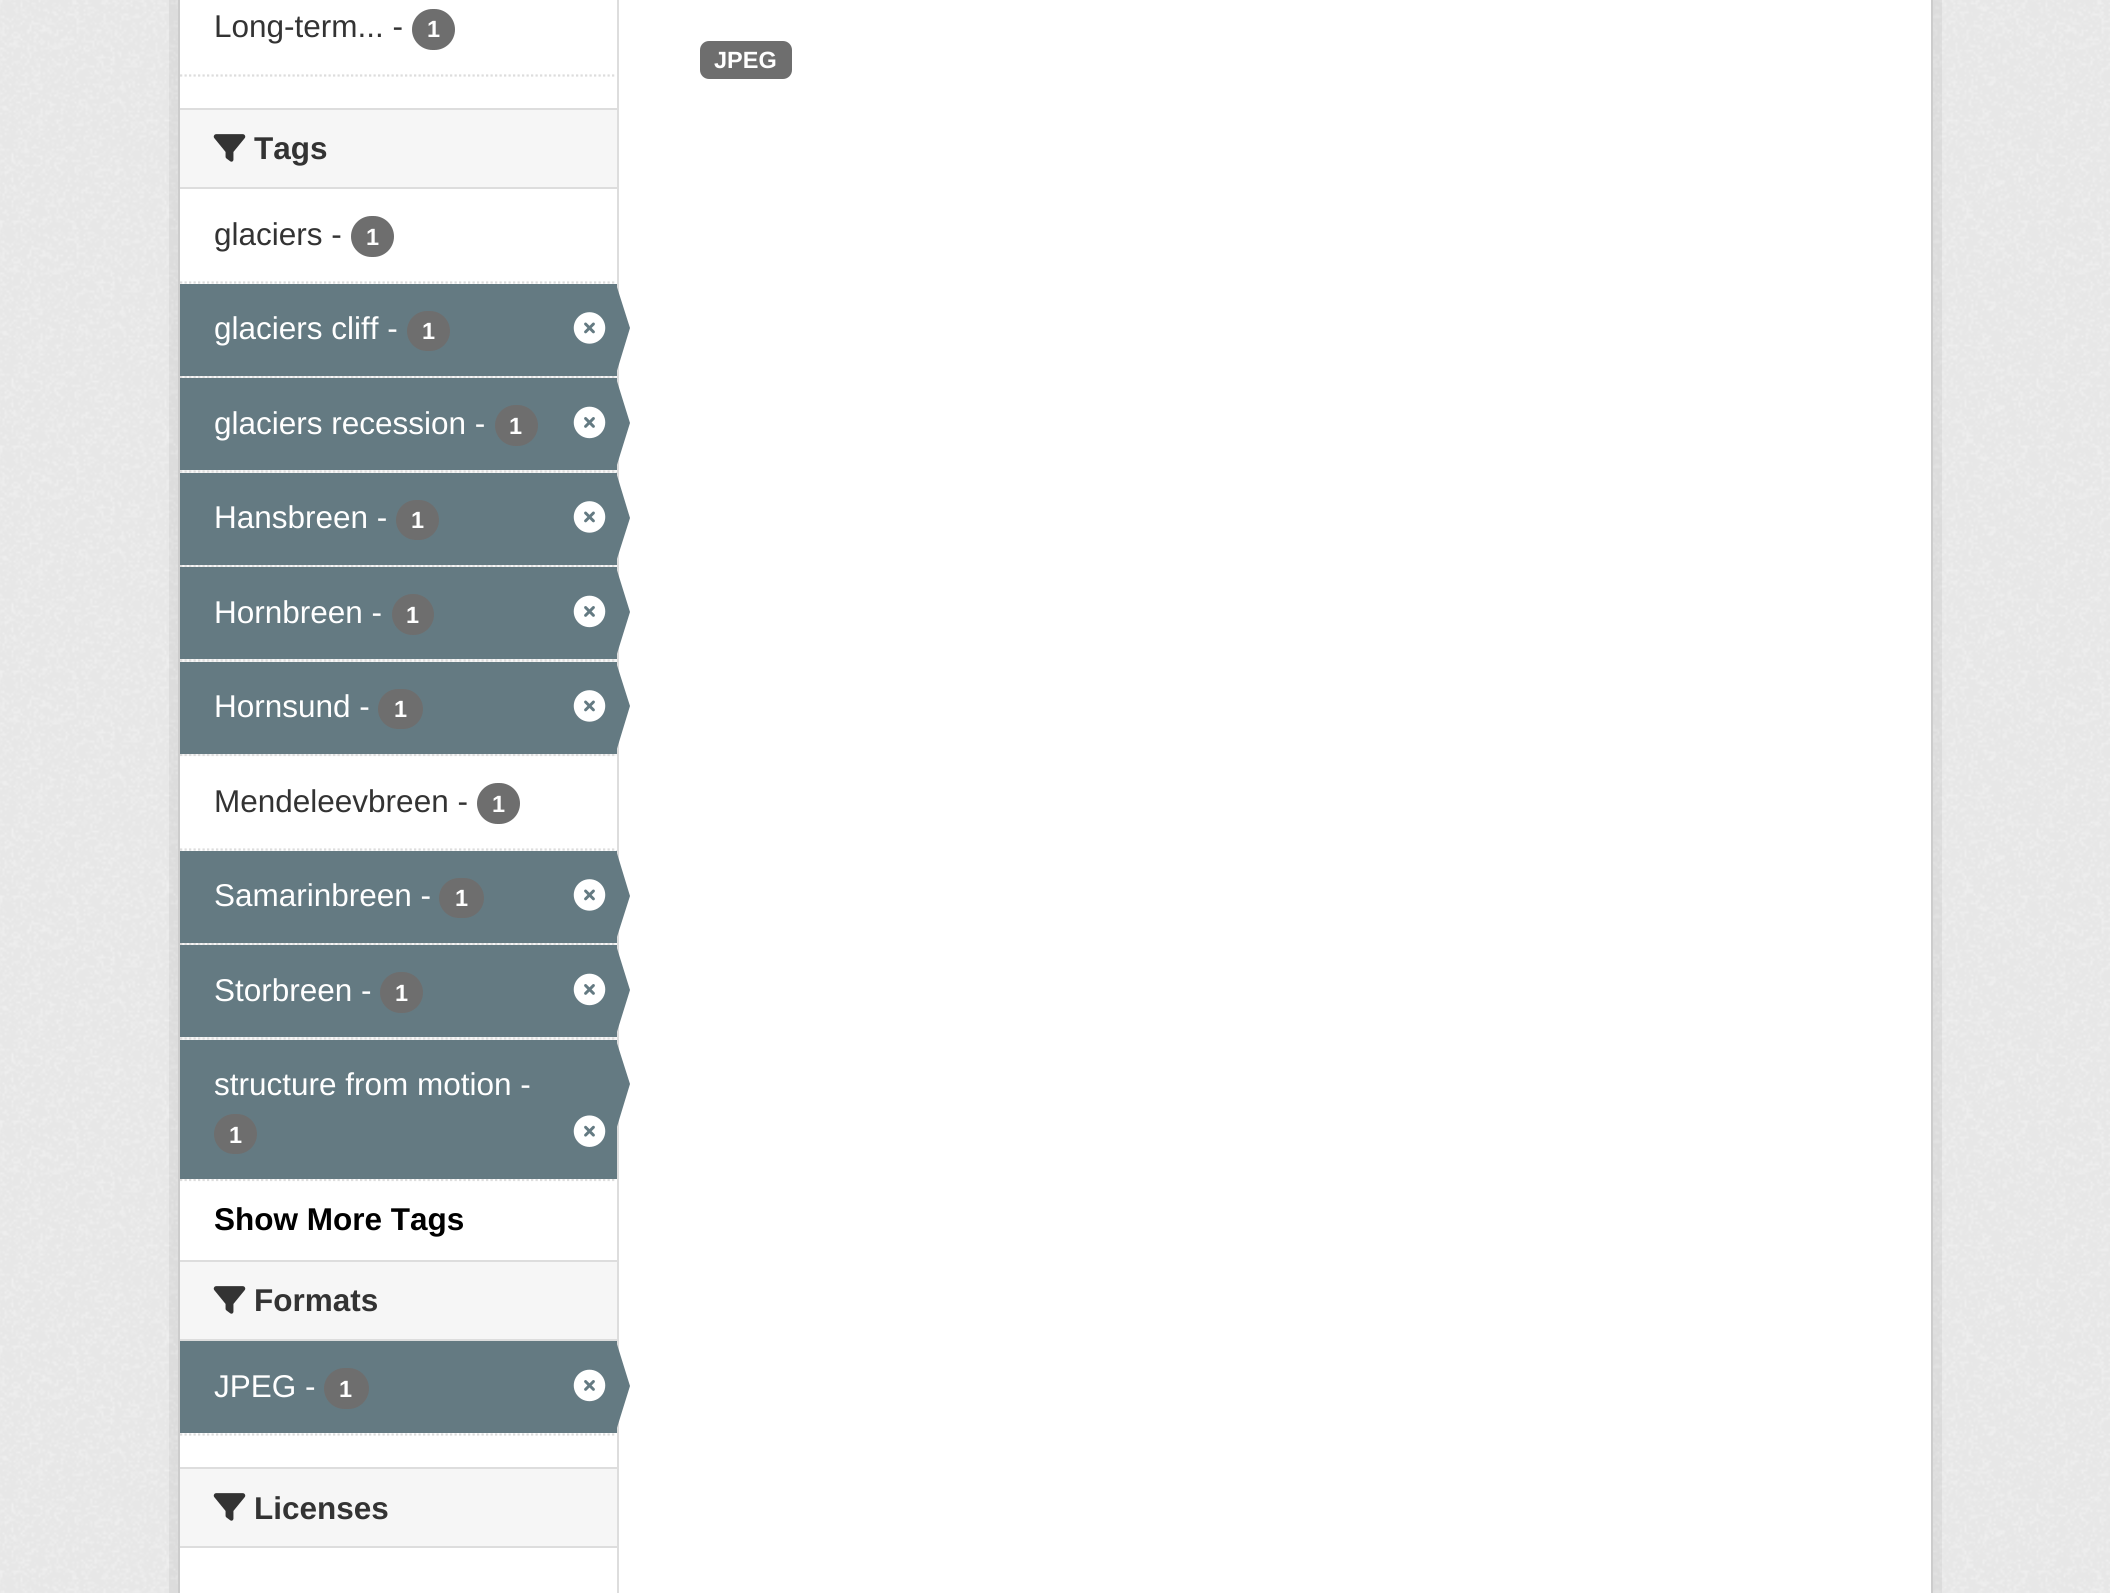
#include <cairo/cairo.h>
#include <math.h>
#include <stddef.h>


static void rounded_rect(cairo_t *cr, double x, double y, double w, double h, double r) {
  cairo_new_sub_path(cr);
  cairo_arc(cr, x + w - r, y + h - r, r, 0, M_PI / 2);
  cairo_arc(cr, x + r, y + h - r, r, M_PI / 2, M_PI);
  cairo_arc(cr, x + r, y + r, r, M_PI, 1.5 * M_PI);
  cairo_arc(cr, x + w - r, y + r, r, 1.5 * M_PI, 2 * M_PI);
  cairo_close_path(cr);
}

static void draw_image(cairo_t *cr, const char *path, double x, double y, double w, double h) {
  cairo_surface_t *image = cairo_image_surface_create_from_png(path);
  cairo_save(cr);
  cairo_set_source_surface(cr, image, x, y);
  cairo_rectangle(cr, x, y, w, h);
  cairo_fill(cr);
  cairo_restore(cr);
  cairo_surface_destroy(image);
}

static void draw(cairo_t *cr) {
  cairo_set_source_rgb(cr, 238 / 255.0, 238 / 255.0, 238 / 255.0);
  cairo_paint(cr);
  draw_image(cr, "images/1.png", 0, 0, 2110, 1593);
  cairo_rectangle(cr, 173.5, -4.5, 1764, 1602);
  cairo_set_source_rgba(cr, 0, 0, 0, 0.05);
  cairo_set_line_width(cr, 9);
  cairo_stroke(cr);
  cairo_set_source_rgb(cr, 1, 1, 1);
  cairo_rectangle(cr, 179, -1, 1753, 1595);
  cairo_fill_preserve(cr);
  cairo_set_source_rgb(cr, 204 / 255.0, 204 / 255.0, 204 / 255.0);
  cairo_set_line_width(cr, 2);
  cairo_stroke(cr);
  cairo_set_source_rgb(cr, 110 / 255.0, 110 / 255.0, 110 / 255.0);
  rounded_rect(cr, 412, 9, 43, 41, 20.5);
  cairo_fill(cr);
  cairo_new_path(cr);
  cairo_move_to(cr, 180, 75.5);
  cairo_line_to(cr, 616.5, 75.5);
  cairo_set_source_rgb(cr, 221 / 255.0, 221 / 255.0, 221 / 255.0);
  cairo_set_line_width(cr, 2.2);
  cairo_set_dash(cr, (double[]){2.25, 2.25}, 2, 0);
  cairo_stroke(cr);
  cairo_set_source_rgb(cr, 246 / 255.0, 246 / 255.0, 246 / 255.0);
  cairo_rectangle(cr, 180, 110, 437, 77);
  cairo_fill(cr);
  cairo_set_source_rgb(cr, 221 / 255.0, 221 / 255.0, 221 / 255.0);
  cairo_rectangle(cr, 180, 108, 437, 2);
  cairo_fill(cr);
  cairo_rectangle(cr, 180, 187, 437, 2);
  cairo_fill(cr);
  draw_image(cr, "images/2.png", 213, 134, 33, 28);
  cairo_new_path(cr);
  cairo_move_to(cr, 180, 282.5);
  cairo_line_to(cr, 616.5, 282.5);
  cairo_stroke(cr);
  cairo_set_source_rgb(cr, 110 / 255.0, 110 / 255.0, 110 / 255.0);
  rounded_rect(cr, 351, 216, 43, 41, 20.5);
  cairo_fill(cr);
  cairo_set_source_rgb(cr, 246 / 255.0, 246 / 255.0, 246 / 255.0);
  cairo_rectangle(cr, 182, 376, 435, 2);
  cairo_fill(cr);
  cairo_new_path(cr);
  cairo_move_to(cr, 180, 377);
  cairo_line_to(cr, 616.5, 377);
  cairo_set_source_rgb(cr, 221 / 255.0, 221 / 255.0, 221 / 255.0);
  cairo_stroke(cr);
  cairo_set_source_rgb(cr, 100 / 255.0, 122 / 255.0, 130 / 255.0);
  cairo_rectangle(cr, 180, 284, 437, 92);
  cairo_fill(cr);
  cairo_set_source_rgb(cr, 110 / 255.0, 110 / 255.0, 110 / 255.0);
  rounded_rect(cr, 407, 311, 43, 40, 20);
  cairo_fill(cr);
  draw_image(cr, "images/3.png", 573, 312, 33, 32);
  cairo_set_source_rgb(cr, 221 / 255.0, 221 / 255.0, 221 / 255.0);
  cairo_rectangle(cr, 617, 0, 2, 1593);
  cairo_fill(cr);
  cairo_set_source_rgb(cr, 100 / 255.0, 122 / 255.0, 130 / 255.0);
  cairo_new_path(cr);
  cairo_move_to(cr, 616, 374);
  cairo_line_to(cr, 616, 284);
  cairo_line_to(cr, 630, 328);
  cairo_close_path(cr);
  cairo_fill(cr);
  cairo_set_source_rgb(cr, 246 / 255.0, 246 / 255.0, 246 / 255.0);
  cairo_rectangle(cr, 180, 470, 437, 3);
  cairo_fill(cr);
  cairo_new_path(cr);
  cairo_move_to(cr, 180, 471.5);
  cairo_line_to(cr, 616.5, 471.5);
  cairo_set_source_rgb(cr, 221 / 255.0, 221 / 255.0, 221 / 255.0);
  cairo_stroke(cr);
  cairo_set_source_rgb(cr, 100 / 255.0, 122 / 255.0, 130 / 255.0);
  cairo_rectangle(cr, 180, 378, 437, 92);
  cairo_fill(cr);
  cairo_set_source_rgb(cr, 110 / 255.0, 110 / 255.0, 110 / 255.0);
  rounded_rect(cr, 495, 405, 43, 41, 20.5);
  cairo_fill(cr);
  draw_image(cr, "images/4.png", 573, 406, 33, 33);
  cairo_set_source_rgb(cr, 100 / 255.0, 122 / 255.0, 130 / 255.0);
  cairo_new_path(cr);
  cairo_move_to(cr, 616, 468);
  cairo_line_to(cr, 616, 378);
  cairo_line_to(cr, 630, 423);
  cairo_close_path(cr);
  cairo_fill(cr);
  cairo_set_source_rgb(cr, 246 / 255.0, 246 / 255.0, 246 / 255.0);
  cairo_rectangle(cr, 182, 565, 435, 2);
  cairo_fill(cr);
  cairo_new_path(cr);
  cairo_move_to(cr, 180, 566);
  cairo_line_to(cr, 616.5, 566);
  cairo_set_source_rgb(cr, 221 / 255.0, 221 / 255.0, 221 / 255.0);
  cairo_stroke(cr);
  cairo_set_source_rgb(cr, 100 / 255.0, 122 / 255.0, 130 / 255.0);
  cairo_rectangle(cr, 180, 473, 437, 92);
  cairo_fill(cr);
  cairo_set_source_rgb(cr, 110 / 255.0, 110 / 255.0, 110 / 255.0);
  rounded_rect(cr, 396, 500, 43, 40, 20);
  cairo_fill(cr);
  draw_image(cr, "images/3.png", 573, 501, 33, 32);
  cairo_set_source_rgb(cr, 100 / 255.0, 122 / 255.0, 130 / 255.0);
  cairo_new_path(cr);
  cairo_move_to(cr, 616, 562);
  cairo_line_to(cr, 616, 472);
  cairo_line_to(cr, 630, 518);
  cairo_close_path(cr);
  cairo_fill(cr);
  cairo_set_source_rgb(cr, 246 / 255.0, 246 / 255.0, 246 / 255.0);
  cairo_rectangle(cr, 180, 659, 437, 3);
  cairo_fill(cr);
  cairo_new_path(cr);
  cairo_move_to(cr, 180, 660.5);
  cairo_line_to(cr, 616.5, 660.5);
  cairo_set_source_rgb(cr, 221 / 255.0, 221 / 255.0, 221 / 255.0);
  cairo_stroke(cr);
  cairo_set_source_rgb(cr, 100 / 255.0, 122 / 255.0, 130 / 255.0);
  cairo_rectangle(cr, 180, 567, 437, 92);
  cairo_fill(cr);
  cairo_set_source_rgb(cr, 110 / 255.0, 110 / 255.0, 110 / 255.0);
  rounded_rect(cr, 392, 594, 42, 41, 20.5);
  cairo_fill(cr);
  draw_image(cr, "images/4.png", 573, 595, 33, 33);
  cairo_set_source_rgb(cr, 100 / 255.0, 122 / 255.0, 130 / 255.0);
  cairo_new_path(cr);
  cairo_move_to(cr, 616, 657);
  cairo_line_to(cr, 616, 567);
  cairo_line_to(cr, 630, 612);
  cairo_close_path(cr);
  cairo_fill(cr);
  cairo_set_source_rgb(cr, 246 / 255.0, 246 / 255.0, 246 / 255.0);
  cairo_rectangle(cr, 182, 754, 435, 2);
  cairo_fill(cr);
  cairo_new_path(cr);
  cairo_move_to(cr, 180, 755);
  cairo_line_to(cr, 616.5, 755);
  cairo_set_source_rgb(cr, 221 / 255.0, 221 / 255.0, 221 / 255.0);
  cairo_stroke(cr);
  cairo_set_source_rgb(cr, 100 / 255.0, 122 / 255.0, 130 / 255.0);
  cairo_rectangle(cr, 180, 662, 437, 92);
  cairo_fill(cr);
  cairo_set_source_rgb(cr, 110 / 255.0, 110 / 255.0, 110 / 255.0);
  rounded_rect(cr, 378, 689, 45, 40, 20);
  cairo_fill(cr);
  draw_image(cr, "images/3.png", 573, 690, 33, 32);
  cairo_set_source_rgb(cr, 100 / 255.0, 122 / 255.0, 130 / 255.0);
  cairo_new_path(cr);
  cairo_move_to(cr, 616, 752);
  cairo_line_to(cr, 616, 662);
  cairo_line_to(cr, 630, 706);
  cairo_close_path(cr);
  cairo_fill(cr);
  cairo_new_path(cr);
  cairo_move_to(cr, 180, 849.5);
  cairo_line_to(cr, 616.5, 849.5);
  cairo_set_source_rgb(cr, 221 / 255.0, 221 / 255.0, 221 / 255.0);
  cairo_stroke(cr);
  cairo_set_source_rgb(cr, 110 / 255.0, 110 / 255.0, 110 / 255.0);
  rounded_rect(cr, 477, 783, 43, 41, 20.5);
  cairo_fill(cr);
  cairo_set_source_rgb(cr, 246 / 255.0, 246 / 255.0, 246 / 255.0);
  cairo_rectangle(cr, 182, 943, 435, 2);
  cairo_fill(cr);
  cairo_new_path(cr);
  cairo_move_to(cr, 180, 944);
  cairo_line_to(cr, 616.5, 944);
  cairo_set_source_rgb(cr, 221 / 255.0, 221 / 255.0, 221 / 255.0);
  cairo_stroke(cr);
  cairo_set_source_rgb(cr, 100 / 255.0, 122 / 255.0, 130 / 255.0);
  cairo_rectangle(cr, 180, 851, 437, 92);
  cairo_fill(cr);
  cairo_set_source_rgb(cr, 110 / 255.0, 110 / 255.0, 110 / 255.0);
  rounded_rect(cr, 439, 878, 45, 40, 20);
  cairo_fill(cr);
  draw_image(cr, "images/3.png", 573, 879, 33, 32);
  cairo_set_source_rgb(cr, 100 / 255.0, 122 / 255.0, 130 / 255.0);
  cairo_new_path(cr);
  cairo_move_to(cr, 616, 940);
  cairo_line_to(cr, 616, 850);
  cairo_line_to(cr, 630, 896);
  cairo_close_path(cr);
  cairo_fill(cr);
  cairo_set_source_rgb(cr, 246 / 255.0, 246 / 255.0, 246 / 255.0);
  cairo_rectangle(cr, 180, 1037, 437, 3);
  cairo_fill(cr);
  cairo_new_path(cr);
  cairo_move_to(cr, 180, 1038.5);
  cairo_line_to(cr, 616.5, 1038.5);
  cairo_set_source_rgb(cr, 221 / 255.0, 221 / 255.0, 221 / 255.0);
  cairo_stroke(cr);
  cairo_set_source_rgb(cr, 100 / 255.0, 122 / 255.0, 130 / 255.0);
  cairo_rectangle(cr, 180, 945, 437, 92);
  cairo_fill(cr);
  cairo_set_source_rgb(cr, 110 / 255.0, 110 / 255.0, 110 / 255.0);
  rounded_rect(cr, 380, 972, 43, 41, 20.5);
  cairo_fill(cr);
  draw_image(cr, "images/4.png", 573, 973, 33, 33);
  cairo_set_source_rgb(cr, 100 / 255.0, 122 / 255.0, 130 / 255.0);
  cairo_new_path(cr);
  cairo_move_to(cr, 616, 1035);
  cairo_line_to(cr, 616, 945);
  cairo_line_to(cr, 630, 990);
  cairo_close_path(cr);
  cairo_fill(cr);
  cairo_new_path(cr);
  cairo_move_to(cr, 180, 1180);
  cairo_line_to(cr, 616.5, 1180);
  cairo_set_source_rgb(cr, 221 / 255.0, 221 / 255.0, 221 / 255.0);
  cairo_stroke(cr);
  cairo_set_source_rgb(cr, 100 / 255.0, 122 / 255.0, 130 / 255.0);
  cairo_rectangle(cr, 180, 1040, 437, 139);
  cairo_fill(cr);
  cairo_new_path(cr);
  cairo_move_to(cr, 616, 1130);
  cairo_line_to(cr, 616, 1040);
  cairo_line_to(cr, 630, 1084);
  cairo_close_path(cr);
  cairo_fill(cr);
  cairo_set_source_rgb(cr, 110 / 255.0, 110 / 255.0, 110 / 255.0);
  rounded_rect(cr, 214, 1114, 43, 40, 20);
  cairo_fill(cr);
  draw_image(cr, "images/5.png", 573, 1115, 33, 32);
  cairo_set_source_rgb(cr, 246 / 255.0, 246 / 255.0, 246 / 255.0);
  cairo_rectangle(cr, 180, 1262, 437, 77);
  cairo_fill(cr);
  cairo_set_source_rgb(cr, 221 / 255.0, 221 / 255.0, 221 / 255.0);
  cairo_rectangle(cr, 180, 1260, 437, 2);
  cairo_fill(cr);
  cairo_rectangle(cr, 180, 1339, 437, 2);
  cairo_fill(cr);
  draw_image(cr, "images/2.png", 213, 1286, 33, 28);
  cairo_set_source_rgb(cr, 100 / 255.0, 122 / 255.0, 130 / 255.0);
  cairo_rectangle(cr, 180, 1341, 437, 92);
  cairo_fill(cr);
  cairo_set_source_rgb(cr, 110 / 255.0, 110 / 255.0, 110 / 255.0);
  rounded_rect(cr, 324, 1368, 45, 41, 20.5);
  cairo_fill(cr);
  draw_image(cr, "images/4.png", 573, 1369, 33, 33);
  cairo_set_source_rgb(cr, 100 / 255.0, 122 / 255.0, 130 / 255.0);
  cairo_new_path(cr);
  cairo_move_to(cr, 616, 1431);
  cairo_line_to(cr, 616, 1341);
  cairo_line_to(cr, 630, 1386);
  cairo_close_path(cr);
  cairo_fill(cr);
  cairo_new_path(cr);
  cairo_move_to(cr, 180, 1434.5);
  cairo_line_to(cr, 616.5, 1434.5);
  cairo_set_source_rgb(cr, 221 / 255.0, 221 / 255.0, 221 / 255.0);
  cairo_stroke(cr);
  cairo_set_source_rgb(cr, 246 / 255.0, 246 / 255.0, 246 / 255.0);
  cairo_rectangle(cr, 180, 1469, 437, 77);
  cairo_fill(cr);
  cairo_set_source_rgb(cr, 221 / 255.0, 221 / 255.0, 221 / 255.0);
  cairo_rectangle(cr, 180, 1467, 437, 2);
  cairo_fill(cr);
  cairo_rectangle(cr, 180, 1546, 437, 2);
  cairo_fill(cr);
  draw_image(cr, "images/2.png", 213, 1493, 33, 28);
  cairo_set_source_rgb(cr, 110 / 255.0, 110 / 255.0, 110 / 255.0);
  rounded_rect(cr, 700, 41, 92, 38, 9);
  cairo_fill(cr);
  cairo_select_font_face(cr, "Liberation Sans", CAIRO_FONT_SLANT_NORMAL, CAIRO_FONT_WEIGHT_NORMAL);
  cairo_set_font_size(cr, 31.5);
  cairo_set_source_rgb(cr, 51 / 255.0, 51 / 255.0, 51 / 255.0);
  cairo_move_to(cr, 214, 37);
  cairo_show_text(cr, "Long-term... -");
  cairo_select_font_face(cr, "Liberation Sans", CAIRO_FONT_SLANT_NORMAL, CAIRO_FONT_WEIGHT_BOLD);
  cairo_set_font_size(cr, 23.5);
  cairo_set_source_rgb(cr, 1, 1, 1);
  cairo_move_to(cr, 427, 37);
  cairo_show_text(cr, "1");
  cairo_set_font_size(cr, 31.5);
  cairo_set_source_rgb(cr, 51 / 255.0, 51 / 255.0, 51 / 255.0);
  cairo_move_to(cr, 254, 159);
  cairo_show_text(cr, "Tags");
  cairo_select_font_face(cr, "Liberation Sans", CAIRO_FONT_SLANT_NORMAL, CAIRO_FONT_WEIGHT_NORMAL);
  cairo_move_to(cr, 214, 245);
  cairo_show_text(cr, "glaciers -");
  cairo_select_font_face(cr, "Liberation Sans", CAIRO_FONT_SLANT_NORMAL, CAIRO_FONT_WEIGHT_BOLD);
  cairo_set_font_size(cr, 23.5);
  cairo_set_source_rgb(cr, 1, 1, 1);
  cairo_move_to(cr, 366, 245);
  cairo_show_text(cr, "1");
  cairo_select_font_face(cr, "Liberation Sans", CAIRO_FONT_SLANT_NORMAL, CAIRO_FONT_WEIGHT_NORMAL);
  cairo_set_font_size(cr, 31.5);
  cairo_move_to(cr, 214, 339);
  cairo_show_text(cr, "glaciers cliff -");
  cairo_select_font_face(cr, "Liberation Sans", CAIRO_FONT_SLANT_NORMAL, CAIRO_FONT_WEIGHT_BOLD);
  cairo_set_font_size(cr, 23.5);
  cairo_move_to(cr, 422, 339);
  cairo_show_text(cr, "1");
  cairo_select_font_face(cr, "Liberation Sans", CAIRO_FONT_SLANT_NORMAL, CAIRO_FONT_WEIGHT_NORMAL);
  cairo_set_font_size(cr, 31.5);
  cairo_move_to(cr, 214, 434);
  cairo_show_text(cr, "glaciers recession -");
  cairo_select_font_face(cr, "Liberation Sans", CAIRO_FONT_SLANT_NORMAL, CAIRO_FONT_WEIGHT_BOLD);
  cairo_set_font_size(cr, 23.5);
  cairo_move_to(cr, 509, 434);
  cairo_show_text(cr, "1");
  cairo_select_font_face(cr, "Liberation Sans", CAIRO_FONT_SLANT_NORMAL, CAIRO_FONT_WEIGHT_NORMAL);
  cairo_set_font_size(cr, 31.5);
  cairo_move_to(cr, 214, 528);
  cairo_show_text(cr, "Hansbreen -");
  cairo_select_font_face(cr, "Liberation Sans", CAIRO_FONT_SLANT_NORMAL, CAIRO_FONT_WEIGHT_BOLD);
  cairo_set_font_size(cr, 23.5);
  cairo_move_to(cr, 411, 528);
  cairo_show_text(cr, "1");
  cairo_select_font_face(cr, "Liberation Sans", CAIRO_FONT_SLANT_NORMAL, CAIRO_FONT_WEIGHT_NORMAL);
  cairo_set_font_size(cr, 31.5);
  cairo_move_to(cr, 214, 623);
  cairo_show_text(cr, "Hornbreen -");
  cairo_select_font_face(cr, "Liberation Sans", CAIRO_FONT_SLANT_NORMAL, CAIRO_FONT_WEIGHT_BOLD);
  cairo_set_font_size(cr, 23.5);
  cairo_move_to(cr, 406, 623);
  cairo_show_text(cr, "1");
  cairo_select_font_face(cr, "Liberation Sans", CAIRO_FONT_SLANT_NORMAL, CAIRO_FONT_WEIGHT_NORMAL);
  cairo_set_font_size(cr, 31.5);
  cairo_move_to(cr, 214, 717);
  cairo_show_text(cr, "Hornsund -");
  cairo_select_font_face(cr, "Liberation Sans", CAIRO_FONT_SLANT_NORMAL, CAIRO_FONT_WEIGHT_BOLD);
  cairo_set_font_size(cr, 23.5);
  cairo_move_to(cr, 394, 717);
  cairo_show_text(cr, "1");
  cairo_select_font_face(cr, "Liberation Sans", CAIRO_FONT_SLANT_NORMAL, CAIRO_FONT_WEIGHT_NORMAL);
  cairo_set_font_size(cr, 31.5);
  cairo_set_source_rgb(cr, 51 / 255.0, 51 / 255.0, 51 / 255.0);
  cairo_move_to(cr, 214, 812);
  cairo_show_text(cr, "Mendeleevbreen -");
  cairo_select_font_face(cr, "Liberation Sans", CAIRO_FONT_SLANT_NORMAL, CAIRO_FONT_WEIGHT_BOLD);
  cairo_set_font_size(cr, 23.5);
  cairo_set_source_rgb(cr, 1, 1, 1);
  cairo_move_to(cr, 492, 812);
  cairo_show_text(cr, "1");
  cairo_select_font_face(cr, "Liberation Sans", CAIRO_FONT_SLANT_NORMAL, CAIRO_FONT_WEIGHT_NORMAL);
  cairo_set_font_size(cr, 31.5);
  cairo_move_to(cr, 214, 906);
  cairo_show_text(cr, "Samarinbreen -");
  cairo_select_font_face(cr, "Liberation Sans", CAIRO_FONT_SLANT_NORMAL, CAIRO_FONT_WEIGHT_BOLD);
  cairo_set_font_size(cr, 23.5);
  cairo_move_to(cr, 455, 906);
  cairo_show_text(cr, "1");
  cairo_select_font_face(cr, "Liberation Sans", CAIRO_FONT_SLANT_NORMAL, CAIRO_FONT_WEIGHT_NORMAL);
  cairo_set_font_size(cr, 31.5);
  cairo_move_to(cr, 214, 1001);
  cairo_show_text(cr, "Storbreen -");
  cairo_select_font_face(cr, "Liberation Sans", CAIRO_FONT_SLANT_NORMAL, CAIRO_FONT_WEIGHT_BOLD);
  cairo_set_font_size(cr, 23.5);
  cairo_move_to(cr, 395, 1001);
  cairo_show_text(cr, "1");
  cairo_select_font_face(cr, "Liberation Sans", CAIRO_FONT_SLANT_NORMAL, CAIRO_FONT_WEIGHT_NORMAL);
  cairo_set_font_size(cr, 31.5);
  cairo_move_to(cr, 214, 1095);
  cairo_show_text(cr, "structure from motion -");
  cairo_select_font_face(cr, "Liberation Sans", CAIRO_FONT_SLANT_NORMAL, CAIRO_FONT_WEIGHT_BOLD);
  cairo_set_font_size(cr, 23.5);
  cairo_move_to(cr, 229, 1143);
  cairo_show_text(cr, "1");
  cairo_set_font_size(cr, 31.5);
  cairo_set_source_rgb(cr, 0, 0, 0);
  cairo_move_to(cr, 214, 1230);
  cairo_show_text(cr, "Show More Tags");
  cairo_set_source_rgb(cr, 51 / 255.0, 51 / 255.0, 51 / 255.0);
  cairo_move_to(cr, 254, 1311);
  cairo_show_text(cr, "Formats");
  cairo_select_font_face(cr, "Liberation Sans", CAIRO_FONT_SLANT_NORMAL, CAIRO_FONT_WEIGHT_NORMAL);
  cairo_set_source_rgb(cr, 1, 1, 1);
  cairo_move_to(cr, 214, 1397);
  cairo_show_text(cr, "JPEG -");
  cairo_select_font_face(cr, "Liberation Sans", CAIRO_FONT_SLANT_NORMAL, CAIRO_FONT_WEIGHT_BOLD);
  cairo_set_font_size(cr, 23.5);
  cairo_move_to(cr, 339, 1397);
  cairo_show_text(cr, "1");
  cairo_set_font_size(cr, 31.5);
  cairo_set_source_rgb(cr, 51 / 255.0, 51 / 255.0, 51 / 255.0);
  cairo_move_to(cr, 254, 1519);
  cairo_show_text(cr, "Licenses");
  cairo_set_font_size(cr, 23.5);
  cairo_set_source_rgb(cr, 1, 1, 1);
  cairo_move_to(cr, 714, 68);
  cairo_show_text(cr, "JPEG");
}

int main(void) {
  cairo_surface_t *surface = cairo_image_surface_create(CAIRO_FORMAT_RGB24, 2110, 1593);
  cairo_t *cr = cairo_create(surface);
  cairo_font_options_t *options = cairo_font_options_create();
  cairo_font_options_set_hint_metrics(options, CAIRO_HINT_METRICS_OFF);
  cairo_font_options_set_hint_style(options, CAIRO_HINT_STYLE_NONE);
  cairo_set_font_options(cr, options);
  cairo_set_miter_limit(cr, 4);
  draw(cr);
  cairo_surface_write_to_png(surface, "out.png");
  cairo_font_options_destroy(options);
  cairo_destroy(cr);
  cairo_surface_destroy(surface);
  return 0;
}
